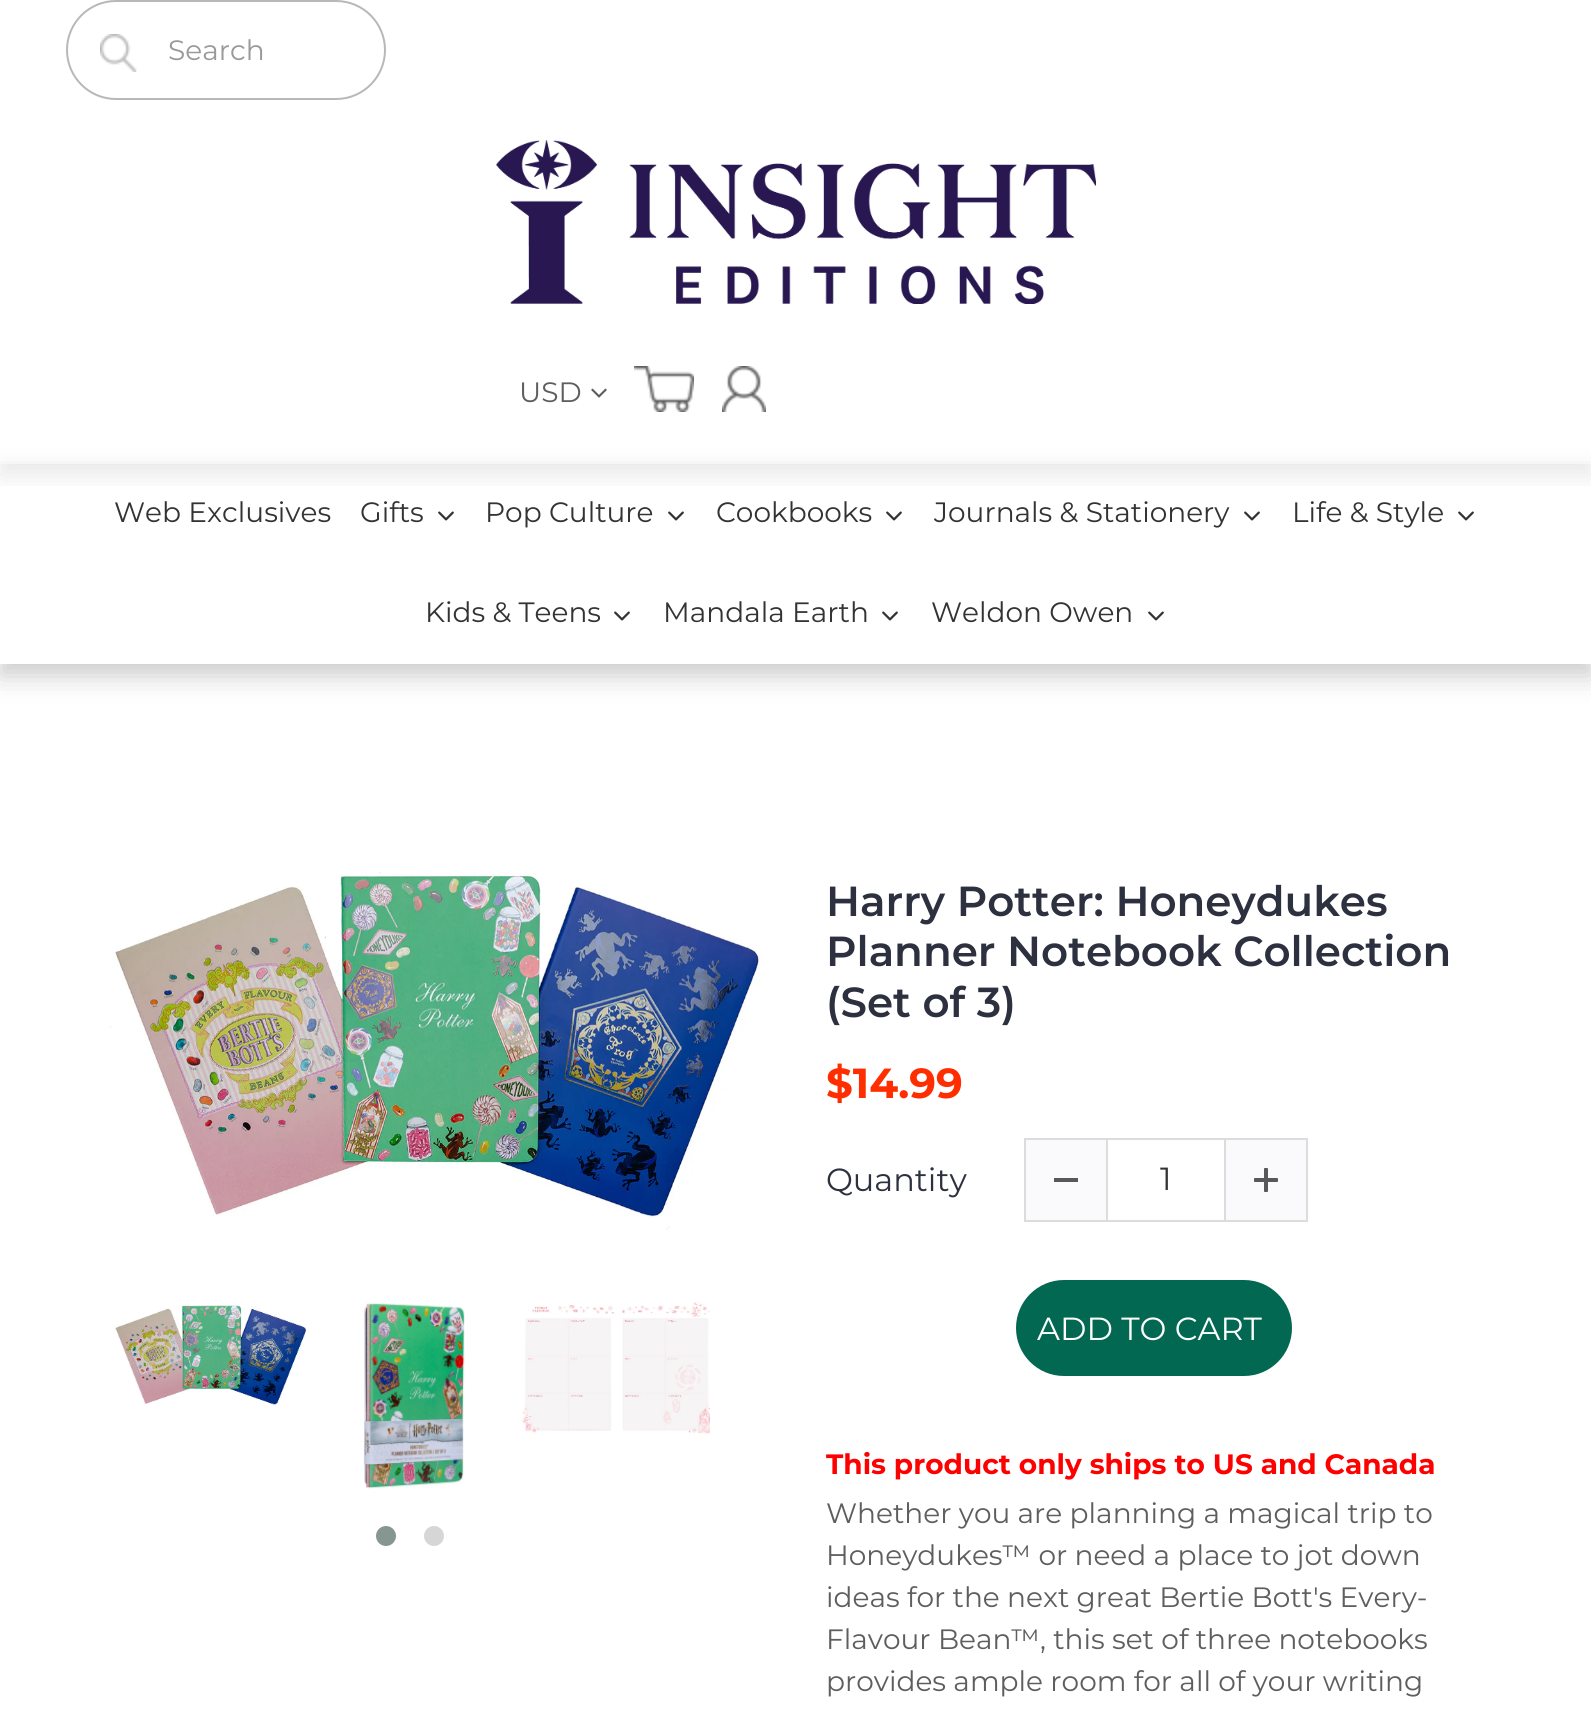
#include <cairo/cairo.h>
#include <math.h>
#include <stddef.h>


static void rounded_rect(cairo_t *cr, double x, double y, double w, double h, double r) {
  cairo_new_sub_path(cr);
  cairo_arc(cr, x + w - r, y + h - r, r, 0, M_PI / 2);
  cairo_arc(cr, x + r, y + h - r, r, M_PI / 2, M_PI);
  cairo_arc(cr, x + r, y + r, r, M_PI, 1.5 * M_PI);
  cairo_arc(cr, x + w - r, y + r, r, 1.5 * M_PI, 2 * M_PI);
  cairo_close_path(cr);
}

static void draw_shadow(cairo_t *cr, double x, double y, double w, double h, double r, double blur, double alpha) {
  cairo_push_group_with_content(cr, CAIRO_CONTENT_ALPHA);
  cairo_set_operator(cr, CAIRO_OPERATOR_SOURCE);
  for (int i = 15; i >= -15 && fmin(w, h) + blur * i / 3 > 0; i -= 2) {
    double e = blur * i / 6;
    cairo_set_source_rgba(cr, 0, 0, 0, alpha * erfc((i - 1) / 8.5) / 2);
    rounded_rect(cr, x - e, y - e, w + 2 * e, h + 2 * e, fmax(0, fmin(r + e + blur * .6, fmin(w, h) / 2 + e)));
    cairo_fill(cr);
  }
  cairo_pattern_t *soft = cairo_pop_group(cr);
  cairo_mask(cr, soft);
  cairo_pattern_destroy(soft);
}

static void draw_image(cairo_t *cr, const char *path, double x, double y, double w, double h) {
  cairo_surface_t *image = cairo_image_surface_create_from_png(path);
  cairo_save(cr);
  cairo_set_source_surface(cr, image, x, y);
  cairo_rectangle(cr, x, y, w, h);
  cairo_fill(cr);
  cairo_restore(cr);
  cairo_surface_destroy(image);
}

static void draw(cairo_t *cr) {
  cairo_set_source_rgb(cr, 1, 1, 1);
  cairo_paint(cr);
  cairo_save(cr);
  cairo_set_fill_rule(cr, CAIRO_FILL_RULE_EVEN_ODD);
  cairo_new_path(cr);
  cairo_move_to(cr, 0, 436);
  cairo_line_to(cr, 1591, 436);
  cairo_line_to(cr, 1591, 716);
  cairo_line_to(cr, 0, 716);
  cairo_close_path(cr);
  cairo_move_to(cr, 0, 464);
  cairo_line_to(cr, 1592, 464);
  cairo_line_to(cr, 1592, 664);
  cairo_line_to(cr, 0, 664);
  cairo_close_path(cr);
  cairo_clip(cr);
  cairo_set_source_rgb(cr, 0, 0, 0);
  draw_shadow(cr, 0, 476, 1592, 200, 0, 13, 0.2);
  cairo_restore(cr);
  draw_image(cr, "images/6.png", 438, 511, 16, 10);
  draw_image(cr, "images/6.png", 668, 511, 16, 10);
  draw_image(cr, "images/6.png", 886, 511, 16, 10);
  draw_image(cr, "images/6.png", 1244, 511, 16, 10);
  draw_image(cr, "images/6.png", 1458, 511, 16, 10);
  cairo_save(cr);
  cairo_rectangle(cr, 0, 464, 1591, 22);
  cairo_clip(cr);
  cairo_set_source_rgb(cr, 0, 0, 0);
  draw_shadow(cr, 0, 12, 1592, 464, 0, 13, 0.09);
  cairo_restore(cr);
  rounded_rect(cr, 67, 1, 318, 98, 49);
  cairo_set_source_rgb(cr, 184 / 255.0, 184 / 255.0, 184 / 255.0);
  cairo_stroke(cr);
  draw_image(cr, "images/1.png", 100, 34, 37, 38);
  draw_image(cr, "images/2.png", 496, 140, 600, 164);
  draw_image(cr, "images/3.png", 591, 388, 16, 10);
  draw_image(cr, "images/4.png", 634, 366, 60, 46);
  draw_image(cr, "images/5.png", 722, 366, 44, 46);
  draw_image(cr, "images/6.png", 614, 611, 16, 10);
  draw_image(cr, "images/6.png", 882, 611, 16, 10);
  draw_image(cr, "images/6.png", 1148, 611, 16, 10);
  draw_image(cr, "images/7.png", 110, 871, 651, 359);
  draw_image(cr, "images/8.png", 114, 1305, 192, 100);
  draw_image(cr, "images/9.png", 363, 1303, 102, 186);
  draw_image(cr, "images/10.png", 521, 1301, 189, 133);
  cairo_set_source_rgb(cr, 134 / 255.0, 151 / 255.0, 145 / 255.0);
  cairo_arc(cr, 386, 1536, 10, 0, 2 * M_PI);
  cairo_fill(cr);
  cairo_set_source_rgb(cr, 214 / 255.0, 214 / 255.0, 214 / 255.0);
  cairo_arc(cr, 434, 1536, 10, 0, 2 * M_PI);
  cairo_fill(cr);
  cairo_set_source_rgb(cr, 221 / 255.0, 220 / 255.0, 220 / 255.0);
  cairo_rectangle(cr, 1106, 1140, 2, 80);
  cairo_fill(cr);
  cairo_rectangle(cr, 1224, 1140, 2, 80);
  cairo_fill(cr);
  cairo_rectangle(cr, 1025, 1139, 282, 82);
  cairo_stroke(cr);
  cairo_set_source_rgb(cr, 250 / 255.0, 250 / 255.0, 252 / 255.0);
  cairo_rectangle(cr, 1026, 1140, 80, 80);
  cairo_fill(cr);
  cairo_set_source_rgb(cr, 88 / 255.0, 88 / 255.0, 88 / 255.0);
  cairo_rectangle(cr, 1054, 1178, 24, 4);
  cairo_fill(cr);
  cairo_set_source_rgb(cr, 250 / 255.0, 250 / 255.0, 252 / 255.0);
  cairo_rectangle(cr, 1226, 1140, 80, 80);
  cairo_fill(cr);
  draw_image(cr, "images/11.png", 1254, 1168, 24, 24);
  cairo_set_source_rgb(cr, 2 / 255.0, 104 / 255.0, 81 / 255.0);
  rounded_rect(cr, 1016, 1280, 276, 96, 48);
  cairo_fill(cr);
  cairo_select_font_face(cr, "Montserrat", CAIRO_FONT_SLANT_NORMAL, CAIRO_FONT_WEIGHT_NORMAL);
  cairo_set_font_size(cr, 28);
  cairo_set_source_rgb(cr, 153 / 255.0, 153 / 255.0, 153 / 255.0);
  cairo_move_to(cr, 168, 60);
  cairo_show_text(cr, "Search");
  cairo_set_source_rgb(cr, 94 / 255.0, 94 / 255.0, 94 / 255.0);
  cairo_move_to(cr, 519, 402);
  cairo_show_text(cr, "USD");
  cairo_set_source_rgb(cr, 51 / 255.0, 51 / 255.0, 51 / 255.0);
  cairo_move_to(cr, 114, 522);
  cairo_show_text(cr, "Web Exclusives");
  cairo_move_to(cr, 360, 522);
  cairo_show_text(cr, "Gifts");
  cairo_move_to(cr, 485, 522);
  cairo_show_text(cr, "Pop Culture");
  cairo_move_to(cr, 716, 522);
  cairo_show_text(cr, "Cookbooks");
  cairo_move_to(cr, 934, 522);
  cairo_show_text(cr, "Journals & Stationery");
  cairo_move_to(cr, 1292, 522);
  cairo_show_text(cr, "Life & Style");
  cairo_move_to(cr, 425, 622);
  cairo_show_text(cr, "Kids & Teens");
  cairo_move_to(cr, 663, 622);
  cairo_show_text(cr, "Mandala Earth");
  cairo_move_to(cr, 931, 622);
  cairo_show_text(cr, "Weldon Owen");
  cairo_select_font_face(cr, "Montserrat SemiBold", CAIRO_FONT_SLANT_NORMAL, CAIRO_FONT_WEIGHT_NORMAL);
  cairo_set_font_size(cr, 42);
  cairo_set_source_rgb(cr, 45 / 255.0, 49 / 255.0, 63 / 255.0);
  cairo_move_to(cr, 826, 916);
  cairo_show_text(cr, "Harry Potter: Honeydukes");
  cairo_move_to(cr, 826, 966);
  cairo_show_text(cr, "Planner Notebook Collection");
  cairo_move_to(cr, 826, 1017);
  cairo_show_text(cr, "(Set of 3)");
  cairo_select_font_face(cr, "Montserrat", CAIRO_FONT_SLANT_NORMAL, CAIRO_FONT_WEIGHT_BOLD);
  cairo_set_source_rgb(cr, 1, 46 / 255.0, 0);
  cairo_move_to(cr, 826, 1098);
  cairo_show_text(cr, "$14.99");
  cairo_select_font_face(cr, "Montserrat", CAIRO_FONT_SLANT_NORMAL, CAIRO_FONT_WEIGHT_NORMAL);
  cairo_set_font_size(cr, 32);
  cairo_set_source_rgb(cr, 45 / 255.0, 49 / 255.0, 63 / 255.0);
  cairo_move_to(cr, 826, 1191);
  cairo_show_text(cr, "Quantity");
  cairo_set_source_rgb(cr, 51 / 255.0, 51 / 255.0, 51 / 255.0);
  cairo_move_to(cr, 1160, 1190);
  cairo_show_text(cr, "1");
  cairo_set_source_rgb(cr, 1, 1, 1);
  cairo_move_to(cr, 1037, 1340);
  cairo_show_text(cr, "ADD TO CART");
  cairo_select_font_face(cr, "Montserrat", CAIRO_FONT_SLANT_NORMAL, CAIRO_FONT_WEIGHT_BOLD);
  cairo_set_font_size(cr, 28);
  cairo_set_source_rgb(cr, 1, 0, 0);
  cairo_move_to(cr, 826, 1474);
  cairo_show_text(cr, "This product only ships to US and Canada");
  cairo_select_font_face(cr, "Montserrat", CAIRO_FONT_SLANT_NORMAL, CAIRO_FONT_WEIGHT_NORMAL);
  cairo_set_source_rgb(cr, 94 / 255.0, 94 / 255.0, 94 / 255.0);
  cairo_move_to(cr, 826, 1523);
  cairo_show_text(cr, "Whether you are planning a magical trip to");
  cairo_move_to(cr, 826, 1565);
  cairo_show_text(cr, "Honeydukes™ or need a place to jot down");
  cairo_move_to(cr, 826, 1607);
  cairo_show_text(cr, "ideas for the next great Bertie Bott's Every-");
  cairo_move_to(cr, 826, 1649);
  cairo_show_text(cr, "Flavour Bean™, this set of three notebooks");
  cairo_move_to(cr, 826, 1691);
  cairo_show_text(cr, "provides ample room for all of your writing");
}

int main(void) {
  cairo_surface_t *surface = cairo_image_surface_create(CAIRO_FORMAT_RGB24, 1591, 1724);
  cairo_t *cr = cairo_create(surface);
  cairo_font_options_t *options = cairo_font_options_create();
  cairo_font_options_set_hint_metrics(options, CAIRO_HINT_METRICS_OFF);
  cairo_font_options_set_hint_style(options, CAIRO_HINT_STYLE_NONE);
  cairo_set_font_options(cr, options);
  cairo_set_miter_limit(cr, 4);
  draw(cr);
  cairo_surface_write_to_png(surface, "out.png");
  cairo_font_options_destroy(options);
  cairo_destroy(cr);
  cairo_surface_destroy(surface);
  return 0;
}
